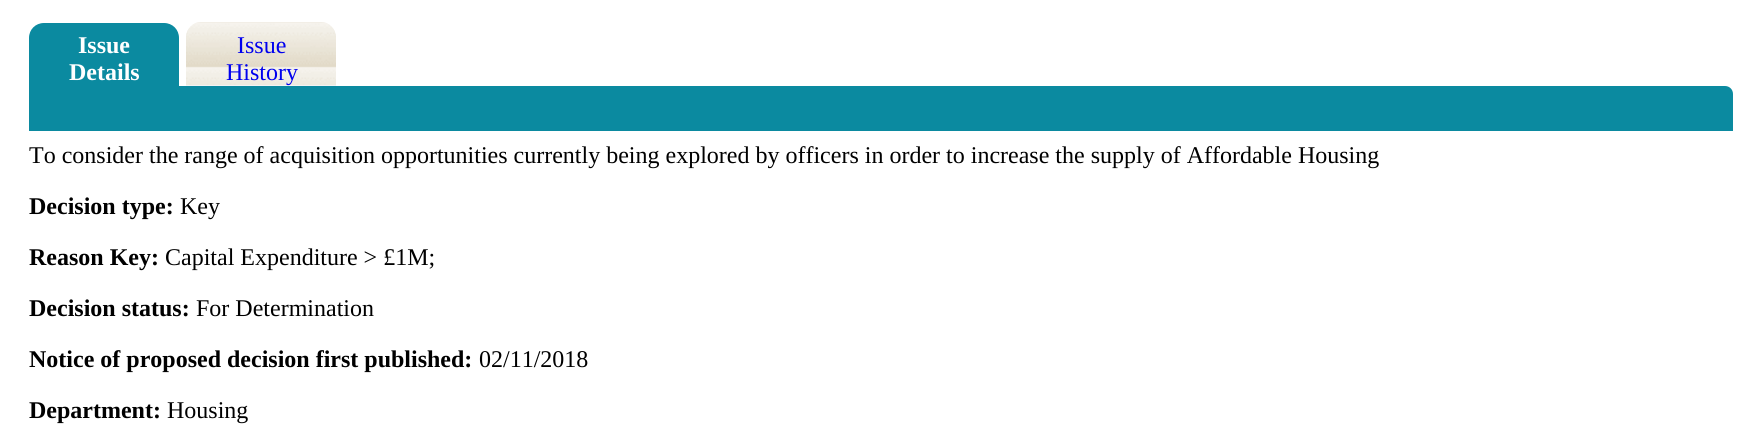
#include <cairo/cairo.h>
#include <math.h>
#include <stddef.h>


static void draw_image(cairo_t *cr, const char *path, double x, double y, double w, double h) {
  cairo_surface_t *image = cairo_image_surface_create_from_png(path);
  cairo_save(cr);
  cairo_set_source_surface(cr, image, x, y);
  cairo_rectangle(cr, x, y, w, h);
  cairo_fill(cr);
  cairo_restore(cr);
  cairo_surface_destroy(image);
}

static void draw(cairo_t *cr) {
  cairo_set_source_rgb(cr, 1, 1, 1);
  cairo_paint(cr);
  cairo_set_source_rgb(cr, 11 / 255.0, 138 / 255.0, 160 / 255.0);
  cairo_new_path(cr);
  cairo_move_to(cr, 44, 23);
  cairo_line_to(cr, 164, 23);
  cairo_curve_to(cr, 172.5, 23, 179, 29.5, 179, 38);
  cairo_line_to(cr, 179, 86);
  cairo_line_to(cr, 29, 86);
  cairo_line_to(cr, 29, 38);
  cairo_curve_to(cr, 29, 29.5, 35.5, 23, 44, 23);
  cairo_close_path(cr);
  cairo_fill(cr);
  cairo_set_source_rgb(cr, 243 / 255.0, 243 / 255.0, 243 / 255.0);
  cairo_new_path(cr);
  cairo_move_to(cr, 201, 23);
  cairo_line_to(cr, 321, 23);
  cairo_curve_to(cr, 329.5, 23, 336, 29.5, 336, 38);
  cairo_line_to(cr, 336, 86);
  cairo_line_to(cr, 186, 86);
  cairo_line_to(cr, 186, 38);
  cairo_curve_to(cr, 186, 29.5, 192.5, 23, 201, 23);
  cairo_close_path(cr);
  cairo_fill(cr);
  draw_image(cr, "images/1.png", 186, 22, 150, 63);
  cairo_set_source_rgb(cr, 11 / 255.0, 138 / 255.0, 160 / 255.0);
  cairo_new_path(cr);
  cairo_move_to(cr, 29, 86);
  cairo_line_to(cr, 1725, 86);
  cairo_curve_to(cr, 1729.5, 86, 1733, 89.5, 1733, 94);
  cairo_line_to(cr, 1733, 131);
  cairo_line_to(cr, 29, 131);
  cairo_close_path(cr);
  cairo_fill(cr);
  cairo_select_font_face(cr, "Liberation Serif", CAIRO_FONT_SLANT_NORMAL, CAIRO_FONT_WEIGHT_BOLD);
  cairo_set_font_size(cr, 24);
  cairo_set_source_rgb(cr, 1, 1, 1);
  cairo_move_to(cr, 78, 53);
  cairo_show_text(cr, "Issue");
  cairo_move_to(cr, 69, 80);
  cairo_show_text(cr, "Details");
  cairo_select_font_face(cr, "Liberation Serif", CAIRO_FONT_SLANT_NORMAL, CAIRO_FONT_WEIGHT_NORMAL);
  cairo_set_source_rgb(cr, 0, 0, 238 / 255.0);
  cairo_move_to(cr, 237, 53);
  cairo_show_text(cr, "Issue");
  cairo_move_to(cr, 226, 80);
  cairo_show_text(cr, "History");
  cairo_set_source_rgb(cr, 0, 0, 0);
  cairo_move_to(cr, 29, 163);
  cairo_show_text(cr, "To consider the range of acquisition opportunities currently being explored by officers in order to increase the supply of Affordable Housing");
  cairo_select_font_face(cr, "Liberation Serif", CAIRO_FONT_SLANT_NORMAL, CAIRO_FONT_WEIGHT_BOLD);
  cairo_move_to(cr, 29, 214);
  cairo_show_text(cr, "Decision type:");
  cairo_select_font_face(cr, "Liberation Serif", CAIRO_FONT_SLANT_NORMAL, CAIRO_FONT_WEIGHT_NORMAL);
  cairo_move_to(cr, 180, 214);
  cairo_show_text(cr, "Key");
  cairo_select_font_face(cr, "Liberation Serif", CAIRO_FONT_SLANT_NORMAL, CAIRO_FONT_WEIGHT_BOLD);
  cairo_move_to(cr, 29, 265);
  cairo_show_text(cr, "Reason Key:");
  cairo_select_font_face(cr, "Liberation Serif", CAIRO_FONT_SLANT_NORMAL, CAIRO_FONT_WEIGHT_NORMAL);
  cairo_move_to(cr, 165, 265);
  cairo_show_text(cr, "Capital Expenditure > £1M;");
  cairo_select_font_face(cr, "Liberation Serif", CAIRO_FONT_SLANT_NORMAL, CAIRO_FONT_WEIGHT_BOLD);
  cairo_move_to(cr, 29, 316);
  cairo_show_text(cr, "Decision status:");
  cairo_select_font_face(cr, "Liberation Serif", CAIRO_FONT_SLANT_NORMAL, CAIRO_FONT_WEIGHT_NORMAL);
  cairo_move_to(cr, 196, 316);
  cairo_show_text(cr, "For Determination");
  cairo_select_font_face(cr, "Liberation Serif", CAIRO_FONT_SLANT_NORMAL, CAIRO_FONT_WEIGHT_BOLD);
  cairo_move_to(cr, 29, 367);
  cairo_show_text(cr, "Notice of proposed decision first published:");
  cairo_select_font_face(cr, "Liberation Serif", CAIRO_FONT_SLANT_NORMAL, CAIRO_FONT_WEIGHT_NORMAL);
  cairo_move_to(cr, 479, 367);
  cairo_show_text(cr, "02/11/2018");
  cairo_select_font_face(cr, "Liberation Serif", CAIRO_FONT_SLANT_NORMAL, CAIRO_FONT_WEIGHT_BOLD);
  cairo_move_to(cr, 29, 418);
  cairo_show_text(cr, "Department:");
  cairo_select_font_face(cr, "Liberation Serif", CAIRO_FONT_SLANT_NORMAL, CAIRO_FONT_WEIGHT_NORMAL);
  cairo_move_to(cr, 167, 418);
  cairo_show_text(cr, "Housing");
}

int main(void) {
  cairo_surface_t *surface = cairo_image_surface_create(CAIRO_FORMAT_RGB24, 1744, 427);
  cairo_t *cr = cairo_create(surface);
  cairo_font_options_t *options = cairo_font_options_create();
  cairo_font_options_set_hint_metrics(options, CAIRO_HINT_METRICS_OFF);
  cairo_font_options_set_hint_style(options, CAIRO_HINT_STYLE_NONE);
  cairo_set_font_options(cr, options);
  cairo_set_miter_limit(cr, 4);
  draw(cr);
  cairo_surface_write_to_png(surface, "out.png");
  cairo_font_options_destroy(options);
  cairo_destroy(cr);
  cairo_surface_destroy(surface);
  return 0;
}
